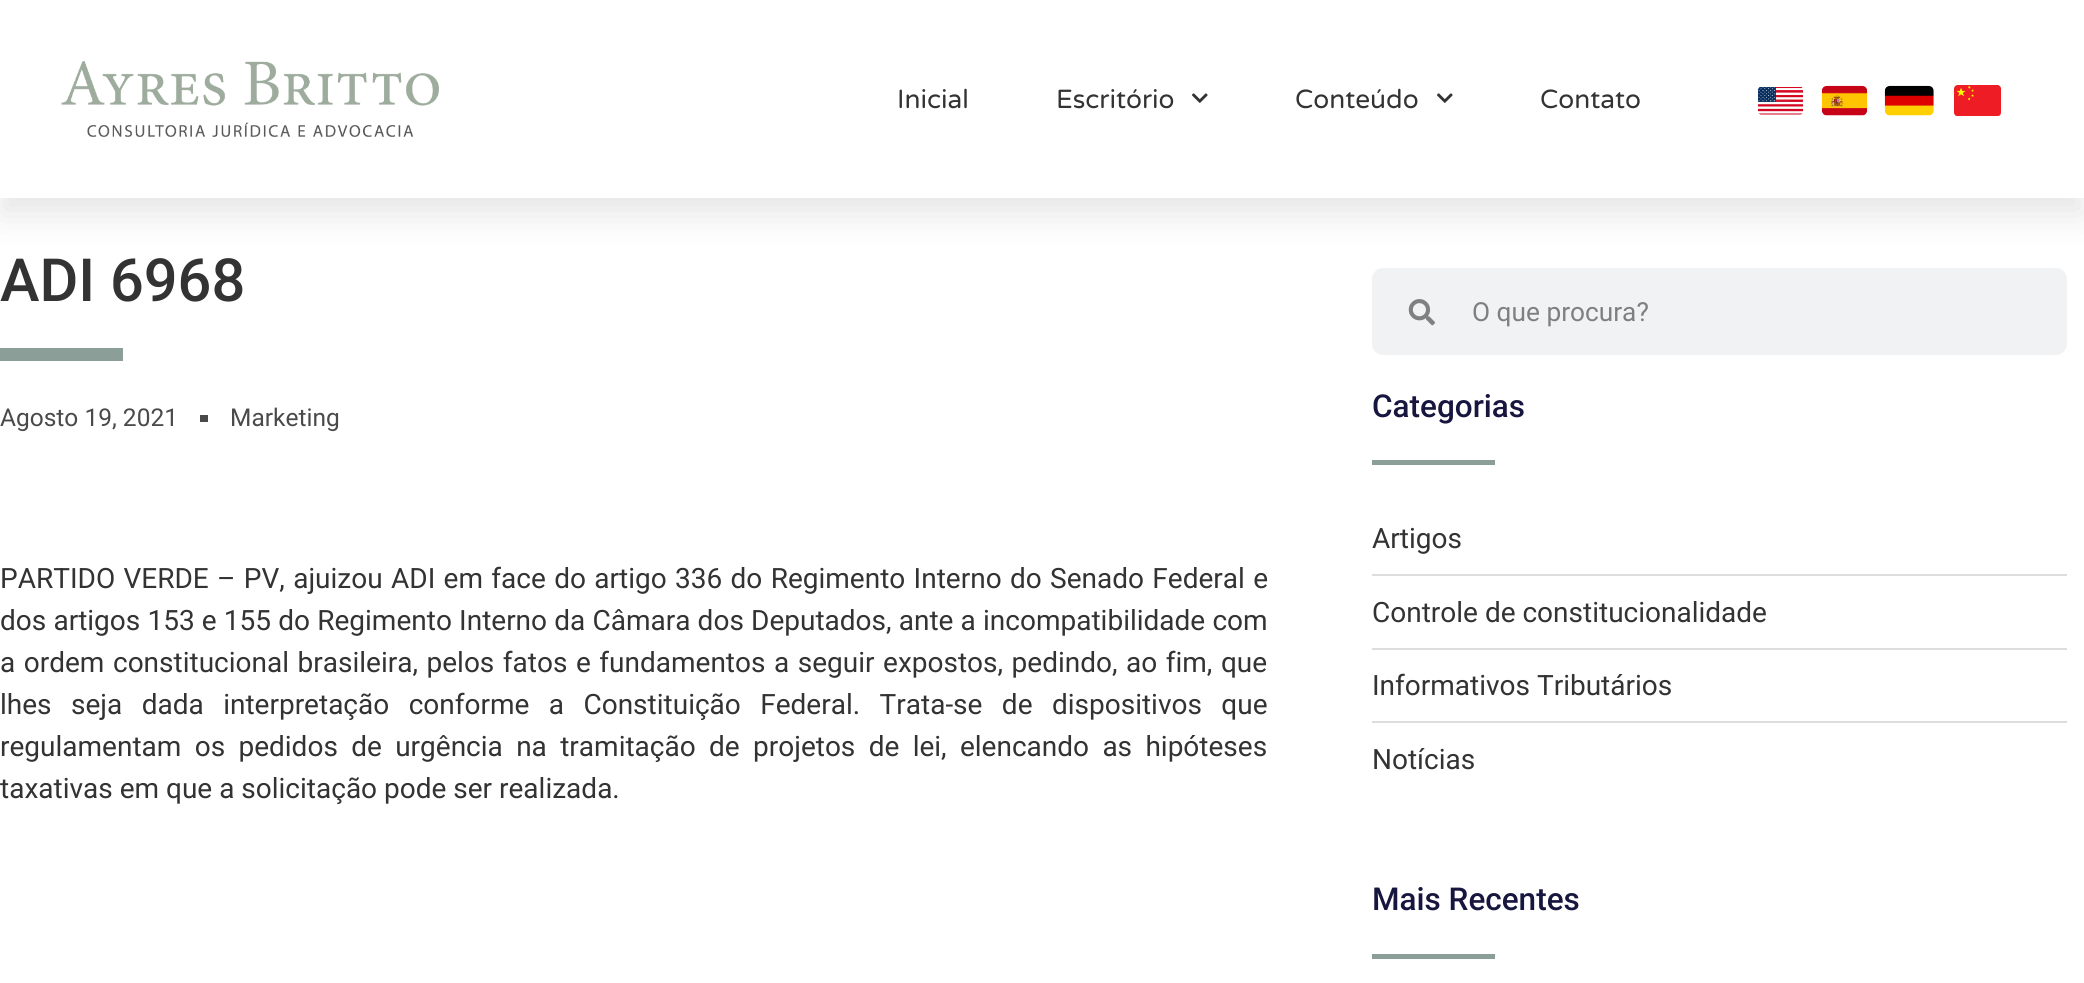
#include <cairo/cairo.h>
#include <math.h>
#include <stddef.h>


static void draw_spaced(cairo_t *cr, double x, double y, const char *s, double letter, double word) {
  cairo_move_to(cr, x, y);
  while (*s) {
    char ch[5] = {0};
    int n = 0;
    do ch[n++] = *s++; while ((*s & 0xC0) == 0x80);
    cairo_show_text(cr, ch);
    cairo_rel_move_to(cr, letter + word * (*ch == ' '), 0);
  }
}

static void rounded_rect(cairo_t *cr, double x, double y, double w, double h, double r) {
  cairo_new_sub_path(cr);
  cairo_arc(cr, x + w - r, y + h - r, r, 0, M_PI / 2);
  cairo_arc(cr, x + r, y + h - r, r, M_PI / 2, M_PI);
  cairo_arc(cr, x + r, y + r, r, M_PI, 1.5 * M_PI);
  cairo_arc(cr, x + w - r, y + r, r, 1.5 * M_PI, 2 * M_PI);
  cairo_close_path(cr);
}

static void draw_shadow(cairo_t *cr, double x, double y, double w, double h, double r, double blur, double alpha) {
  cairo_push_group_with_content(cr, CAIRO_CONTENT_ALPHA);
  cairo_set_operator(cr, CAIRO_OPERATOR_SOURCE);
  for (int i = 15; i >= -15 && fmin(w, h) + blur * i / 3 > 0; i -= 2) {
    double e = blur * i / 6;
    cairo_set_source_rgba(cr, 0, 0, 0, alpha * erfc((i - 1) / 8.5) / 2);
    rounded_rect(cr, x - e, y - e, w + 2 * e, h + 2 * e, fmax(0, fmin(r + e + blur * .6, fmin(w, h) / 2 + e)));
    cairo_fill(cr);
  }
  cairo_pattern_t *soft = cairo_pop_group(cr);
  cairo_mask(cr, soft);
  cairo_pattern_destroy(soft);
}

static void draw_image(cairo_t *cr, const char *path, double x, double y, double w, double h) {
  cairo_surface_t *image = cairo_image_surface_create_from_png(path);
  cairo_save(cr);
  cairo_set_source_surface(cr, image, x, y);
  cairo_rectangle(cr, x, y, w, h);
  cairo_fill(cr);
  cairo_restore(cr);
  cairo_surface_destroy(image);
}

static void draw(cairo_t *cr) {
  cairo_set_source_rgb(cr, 1, 1, 1);
  cairo_paint(cr);
  cairo_set_source_rgb(cr, 241 / 255.0, 242 / 255.0, 243 / 255.0);
  rounded_rect(cr, 1372, 268, 695, 87, 11);
  cairo_fill(cr);
  cairo_set_source_rgb(cr, 0, 0, 0);
  draw_shadow(cr, 0, 18, 2084, 197, 0, 17.5, 0.1);
  cairo_set_source_rgb(cr, 1, 1, 1);
  cairo_rectangle(cr, 0, 0, 2084, 198);
  cairo_fill(cr);
  draw_image(cr, "images/1.png", 61, 60, 378, 77);
  draw_image(cr, "images/2.png", 1192, 93, 16, 10);
  draw_image(cr, "images/2.png", 1437, 93, 16, 10);
  draw_image(cr, "images/3.png", 1758, 87, 45, 28);
  draw_image(cr, "images/4.png", 1821, 85, 47, 31);
  draw_image(cr, "images/5.png", 1884, 85, 50, 31);
  draw_image(cr, "images/6.png", 1954, 85, 47, 31);
  cairo_set_source_rgb(cr, 139 / 255.0, 158 / 255.0, 151 / 255.0);
  cairo_rectangle(cr, 0, 348, 123, 13);
  cairo_fill(cr);
  cairo_set_source_rgb(cr, 74 / 255.0, 74 / 255.0, 74 / 255.0);
  cairo_rectangle(cr, 200, 415, 8, 7);
  cairo_fill(cr);
  draw_image(cr, "images/7.png", 1408, 299, 27, 27);
  cairo_set_source_rgb(cr, 139 / 255.0, 158 / 255.0, 151 / 255.0);
  cairo_rectangle(cr, 1372, 460, 123, 5);
  cairo_fill(cr);
  cairo_set_source_rgb(cr, 221 / 255.0, 221 / 255.0, 221 / 255.0);
  cairo_rectangle(cr, 1372, 574, 695, 2);
  cairo_fill(cr);
  cairo_rectangle(cr, 1372, 648, 695, 2);
  cairo_fill(cr);
  cairo_rectangle(cr, 1372, 721, 695, 2);
  cairo_fill(cr);
  cairo_set_source_rgb(cr, 139 / 255.0, 158 / 255.0, 151 / 255.0);
  cairo_rectangle(cr, 1372, 954, 123, 5);
  cairo_fill(cr);
  cairo_select_font_face(cr, "Varela Round", CAIRO_FONT_SLANT_NORMAL, CAIRO_FONT_WEIGHT_NORMAL);
  cairo_set_font_size(cr, 26.25);
  cairo_set_source_rgb(cr, 51 / 255.0, 51 / 255.0, 51 / 255.0);
  cairo_move_to(cr, 897, 108);
  cairo_show_text(cr, "Inicial");
  cairo_move_to(cr, 1056, 108);
  cairo_show_text(cr, "Escritório");
  cairo_move_to(cr, 1295, 108);
  cairo_show_text(cr, "Conteúdo");
  cairo_move_to(cr, 1540, 108);
  cairo_show_text(cr, "Contato");
  cairo_select_font_face(cr, "Roboto Medium", CAIRO_FONT_SLANT_NORMAL, CAIRO_FONT_WEIGHT_NORMAL);
  cairo_set_font_size(cr, 59.5);
  cairo_move_to(cr, 0, 301);
  cairo_show_text(cr, "ADI 6968");
  cairo_select_font_face(cr, "Roboto", CAIRO_FONT_SLANT_NORMAL, CAIRO_FONT_WEIGHT_NORMAL);
  cairo_set_font_size(cr, 24.5);
  cairo_set_source_rgb(cr, 74 / 255.0, 74 / 255.0, 74 / 255.0);
  cairo_move_to(cr, 0, 426);
  cairo_show_text(cr, "Agosto 19, 2021");
  cairo_move_to(cr, 230, 426);
  cairo_show_text(cr, "Marketing");
  cairo_set_font_size(cr, 28);
  cairo_set_source_rgb(cr, 51 / 255.0, 51 / 255.0, 51 / 255.0);
  draw_spaced(cr, 0, 588, "PARTIDO VERDE – PV, ajuizou ADI em face do artigo 336 do Regimento Interno do Senado Federal e", 0, 1.4);
  draw_spaced(cr, 0, 630, "dos artigos 153 e 155 do Regimento Interno da Câmara dos Deputados, ante a incompatibilidade com", 0, 0.25);
  draw_spaced(cr, 0, 672, "a ordem constitucional brasileira, pelos fatos e fundamentos a seguir expostos, pedindo, ao fim, que", 0, 1.6);
  draw_spaced(cr, 0, 714, "lhes seja dada interpretação conforme a Constituição Federal. Trata-se de dispositivos que", 0, 12.5);
  draw_spaced(cr, 0, 756, "regulamentam os pedidos de urgência na tramitação de projetos de lei, elencando as hipóteses", 0, 6.4);
  cairo_move_to(cr, 0, 798);
  cairo_show_text(cr, "taxativas em que a solicitação pode ser realizada.");
  cairo_set_font_size(cr, 26.25);
  cairo_set_source_rgb(cr, 127 / 255.0, 127 / 255.0, 128 / 255.0);
  cairo_move_to(cr, 1472, 321);
  cairo_show_text(cr, "O que procura?");
  cairo_select_font_face(cr, "Roboto Medium", CAIRO_FONT_SLANT_NORMAL, CAIRO_FONT_WEIGHT_NORMAL);
  cairo_set_font_size(cr, 31.5);
  cairo_set_source_rgb(cr, 22 / 255.0, 22 / 255.0, 63 / 255.0);
  cairo_move_to(cr, 1372, 417);
  cairo_show_text(cr, "Categorias");
  cairo_select_font_face(cr, "Roboto", CAIRO_FONT_SLANT_NORMAL, CAIRO_FONT_WEIGHT_NORMAL);
  cairo_set_font_size(cr, 28);
  cairo_set_source_rgb(cr, 51 / 255.0, 51 / 255.0, 51 / 255.0);
  cairo_move_to(cr, 1372, 548);
  cairo_show_text(cr, "Artigos");
  cairo_move_to(cr, 1372, 622);
  cairo_show_text(cr, "Controle de constitucionalidade");
  cairo_move_to(cr, 1372, 695);
  cairo_show_text(cr, "Informativos Tributários");
  cairo_move_to(cr, 1372, 769);
  cairo_show_text(cr, "Notícias");
  cairo_select_font_face(cr, "Roboto Medium", CAIRO_FONT_SLANT_NORMAL, CAIRO_FONT_WEIGHT_NORMAL);
  cairo_set_font_size(cr, 31.5);
  cairo_set_source_rgb(cr, 22 / 255.0, 22 / 255.0, 63 / 255.0);
  cairo_move_to(cr, 1372, 910);
  cairo_show_text(cr, "Mais Recentes");
}

int main(void) {
  cairo_surface_t *surface = cairo_image_surface_create(CAIRO_FORMAT_RGB24, 2084, 983);
  cairo_t *cr = cairo_create(surface);
  cairo_font_options_t *options = cairo_font_options_create();
  cairo_font_options_set_hint_metrics(options, CAIRO_HINT_METRICS_OFF);
  cairo_font_options_set_hint_style(options, CAIRO_HINT_STYLE_NONE);
  cairo_set_font_options(cr, options);
  cairo_set_miter_limit(cr, 4);
  draw(cr);
  cairo_surface_write_to_png(surface, "out.png");
  cairo_font_options_destroy(options);
  cairo_destroy(cr);
  cairo_surface_destroy(surface);
  return 0;
}
